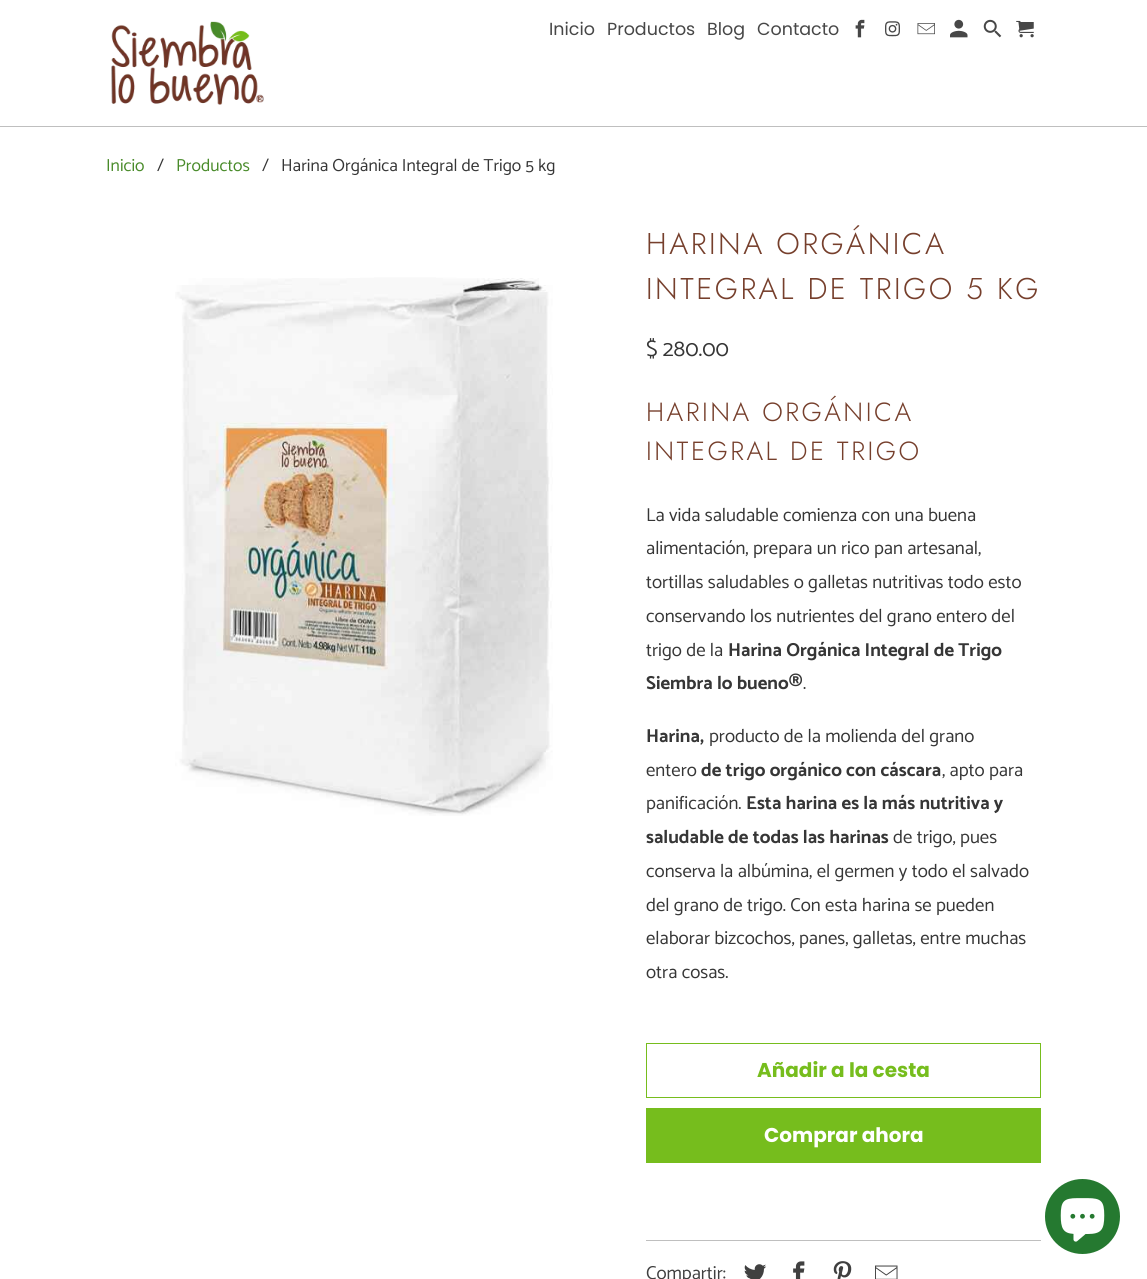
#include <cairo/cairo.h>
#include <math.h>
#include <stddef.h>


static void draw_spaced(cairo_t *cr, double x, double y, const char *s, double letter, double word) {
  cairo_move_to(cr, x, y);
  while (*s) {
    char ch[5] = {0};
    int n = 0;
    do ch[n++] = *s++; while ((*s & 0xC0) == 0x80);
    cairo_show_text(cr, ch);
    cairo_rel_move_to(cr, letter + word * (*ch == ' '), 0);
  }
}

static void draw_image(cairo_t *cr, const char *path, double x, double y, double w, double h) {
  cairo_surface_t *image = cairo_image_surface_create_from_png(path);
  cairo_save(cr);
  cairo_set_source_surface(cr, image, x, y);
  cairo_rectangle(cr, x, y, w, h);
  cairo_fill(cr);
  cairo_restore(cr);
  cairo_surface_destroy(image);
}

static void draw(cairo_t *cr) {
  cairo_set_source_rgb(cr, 1, 1, 1);
  cairo_paint(cr);
  cairo_set_source_rgb(cr, 191 / 255.0, 191 / 255.0, 191 / 255.0);
  cairo_rectangle(cr, 0, 126, 1147, 1);
  cairo_fill(cr);
  draw_image(cr, "images/1.png", 111, 21, 153, 84);
  draw_image(cr, "images/2.png", 855, 19, 10, 19);
  draw_image(cr, "images/3.png", 885, 21, 15, 16);
  draw_image(cr, "images/4.png", 917, 23, 18, 12);
  draw_image(cr, "images/5.png", 950, 19, 18, 19);
  draw_image(cr, "images/6.png", 983, 19, 19, 19);
  draw_image(cr, "images/7.png", 1016, 20, 18, 18);
  draw_image(cr, "images/8.png", 175, 277, 378, 539);
  cairo_rectangle(cr, 646.5, 1043.5, 394, 54);
  cairo_set_source_rgb(cr, 118 / 255.0, 189 / 255.0, 29 / 255.0);
  cairo_set_line_width(cr, 1);
  cairo_stroke(cr);
  cairo_rectangle(cr, 646, 1108, 395, 55);
  cairo_fill(cr);
  cairo_set_source_rgb(cr, 191 / 255.0, 191 / 255.0, 191 / 255.0);
  cairo_rectangle(cr, 646, 1240, 395, 1);
  cairo_fill(cr);
  draw_image(cr, "images/9.png", 744, 1264, 23, 15);
  draw_image(cr, "images/10.png", 793, 1261, 12, 18);
  draw_image(cr, "images/11.png", 833, 1261, 19, 18);
  draw_image(cr, "images/12.png", 875, 1265, 23, 14);
  cairo_set_source_rgb(cr, 37 / 255.0, 121 / 255.0, 48 / 255.0);
  cairo_arc(cr, 1082.5, 1216.5, 37.5, 0, 2 * M_PI);
  cairo_fill(cr);
  draw_image(cr, "images/13.png", 1060, 1198, 45, 44);
  cairo_select_font_face(cr, "Poppins", CAIRO_FONT_SLANT_NORMAL, CAIRO_FONT_WEIGHT_NORMAL);
  cairo_set_font_size(cr, 17.5);
  cairo_set_source_rgb(cr, 71 / 255.0, 71 / 255.0, 71 / 255.0);
  cairo_move_to(cr, 549, 35);
  cairo_show_text(cr, "Inicio");
  cairo_move_to(cr, 607, 35);
  cairo_show_text(cr, "Productos");
  cairo_move_to(cr, 707, 35);
  cairo_show_text(cr, "Blog");
  cairo_move_to(cr, 757, 35);
  cairo_show_text(cr, "Contacto");
  cairo_select_font_face(cr, "Catamaran", CAIRO_FONT_SLANT_NORMAL, CAIRO_FONT_WEIGHT_NORMAL);
  cairo_set_source_rgb(cr, 73 / 255.0, 139 / 255.0, 42 / 255.0);
  cairo_move_to(cr, 106, 171);
  cairo_show_text(cr, "Inicio");
  cairo_set_source_rgb(cr, 54 / 255.0, 54 / 255.0, 54 / 255.0);
  cairo_move_to(cr, 157, 171);
  cairo_show_text(cr, "/");
  cairo_set_source_rgb(cr, 73 / 255.0, 139 / 255.0, 42 / 255.0);
  cairo_move_to(cr, 176, 171);
  cairo_show_text(cr, "Productos");
  cairo_set_source_rgb(cr, 54 / 255.0, 54 / 255.0, 54 / 255.0);
  cairo_move_to(cr, 262, 171);
  cairo_show_text(cr, "/");
  cairo_move_to(cr, 281, 171);
  cairo_show_text(cr, "Harina Orgánica Integral de Trigo 5 kg");
  cairo_select_font_face(cr, "Jost Light", CAIRO_FONT_SLANT_NORMAL, CAIRO_FONT_WEIGHT_NORMAL);
  cairo_set_font_size(cr, 30);
  cairo_set_source_rgb(cr, 118 / 255.0, 63 / 255.0, 44 / 255.0);
  draw_spaced(cr, 646, 254, "HARINA ORGÁNICA", 2.5, 0);
  draw_spaced(cr, 646, 299, "INTEGRAL DE TRIGO 5 KG", 2.5, 0);
  cairo_select_font_face(cr, "Catamaran", CAIRO_FONT_SLANT_NORMAL, CAIRO_FONT_WEIGHT_NORMAL);
  cairo_set_font_size(cr, 22.5);
  cairo_set_source_rgb(cr, 54 / 255.0, 54 / 255.0, 54 / 255.0);
  cairo_move_to(cr, 646, 356);
  cairo_show_text(cr, "$ 280.00");
  cairo_select_font_face(cr, "Jost Light", CAIRO_FONT_SLANT_NORMAL, CAIRO_FONT_WEIGHT_NORMAL);
  cairo_set_font_size(cr, 26.25);
  cairo_set_source_rgb(cr, 118 / 255.0, 63 / 255.0, 44 / 255.0);
  draw_spaced(cr, 646, 421, "HARINA ORGÁNICA", 2.5, 0);
  draw_spaced(cr, 646, 460, "INTEGRAL DE TRIGO", 2.5, 0);
  cairo_select_font_face(cr, "Catamaran", CAIRO_FONT_SLANT_NORMAL, CAIRO_FONT_WEIGHT_NORMAL);
  cairo_set_font_size(cr, 18.75);
  cairo_set_source_rgb(cr, 54 / 255.0, 54 / 255.0, 54 / 255.0);
  cairo_move_to(cr, 646, 521);
  cairo_show_text(cr, "La vida saludable comienza con una buena");
  cairo_move_to(cr, 646, 554);
  cairo_show_text(cr, "alimentación, prepara un rico pan artesanal,");
  cairo_move_to(cr, 646, 588);
  cairo_show_text(cr, "tortillas saludables o galletas nutritivas todo esto");
  cairo_move_to(cr, 646, 622);
  cairo_show_text(cr, "conservando los nutrientes del grano entero del");
  cairo_move_to(cr, 646, 656);
  cairo_show_text(cr, "trigo de la");
  cairo_select_font_face(cr, "Catamaran", CAIRO_FONT_SLANT_NORMAL, CAIRO_FONT_WEIGHT_BOLD);
  cairo_move_to(cr, 728, 656);
  cairo_show_text(cr, "Harina Orgánica Integral de Trigo");
  cairo_move_to(cr, 646, 689);
  cairo_show_text(cr, "Siembra lo bueno®");
  cairo_select_font_face(cr, "Catamaran", CAIRO_FONT_SLANT_NORMAL, CAIRO_FONT_WEIGHT_NORMAL);
  cairo_move_to(cr, 803, 689);
  cairo_show_text(cr, ".");
  cairo_select_font_face(cr, "Catamaran", CAIRO_FONT_SLANT_NORMAL, CAIRO_FONT_WEIGHT_BOLD);
  cairo_move_to(cr, 646, 742);
  cairo_show_text(cr, "Harina,");
  cairo_select_font_face(cr, "Catamaran", CAIRO_FONT_SLANT_NORMAL, CAIRO_FONT_WEIGHT_NORMAL);
  cairo_move_to(cr, 709, 742);
  cairo_show_text(cr, "producto de la molienda del grano");
  cairo_move_to(cr, 646, 776);
  cairo_show_text(cr, "entero");
  cairo_select_font_face(cr, "Catamaran", CAIRO_FONT_SLANT_NORMAL, CAIRO_FONT_WEIGHT_BOLD);
  cairo_move_to(cr, 701, 776);
  cairo_show_text(cr, "de trigo orgánico con cáscara");
  cairo_select_font_face(cr, "Catamaran", CAIRO_FONT_SLANT_NORMAL, CAIRO_FONT_WEIGHT_NORMAL);
  cairo_move_to(cr, 942, 776);
  cairo_show_text(cr, ", apto para");
  cairo_move_to(cr, 646, 809);
  cairo_show_text(cr, "panificación.");
  cairo_select_font_face(cr, "Catamaran", CAIRO_FONT_SLANT_NORMAL, CAIRO_FONT_WEIGHT_BOLD);
  cairo_move_to(cr, 746, 809);
  cairo_show_text(cr, "Esta harina es la más nutritiva y");
  cairo_move_to(cr, 646, 843);
  cairo_show_text(cr, "saludable de todas las harinas");
  cairo_select_font_face(cr, "Catamaran", CAIRO_FONT_SLANT_NORMAL, CAIRO_FONT_WEIGHT_NORMAL);
  cairo_move_to(cr, 893, 843);
  cairo_show_text(cr, "de trigo, pues");
  cairo_move_to(cr, 646, 877);
  cairo_show_text(cr, "conserva la albúmina, el germen y todo el salvado");
  cairo_move_to(cr, 646, 911);
  cairo_show_text(cr, "del grano de trigo. Con esta harina se pueden");
  cairo_move_to(cr, 646, 944);
  cairo_show_text(cr, "elaborar bizcochos, panes, galletas, entre muchas");
  cairo_move_to(cr, 646, 978);
  cairo_show_text(cr, "otra cosas.");
  cairo_select_font_face(cr, "Poppins", CAIRO_FONT_SLANT_NORMAL, CAIRO_FONT_WEIGHT_BOLD);
  cairo_set_font_size(cr, 20);
  cairo_set_source_rgb(cr, 118 / 255.0, 189 / 255.0, 29 / 255.0);
  cairo_move_to(cr, 757, 1077);
  cairo_show_text(cr, "Añadir a la cesta");
  cairo_set_source_rgb(cr, 1, 1, 1);
  cairo_move_to(cr, 764, 1142);
  cairo_show_text(cr, "Comprar ahora");
  cairo_select_font_face(cr, "Catamaran", CAIRO_FONT_SLANT_NORMAL, CAIRO_FONT_WEIGHT_NORMAL);
  cairo_set_font_size(cr, 18.75);
  cairo_set_source_rgb(cr, 64 / 255.0, 64 / 255.0, 64 / 255.0);
  cairo_move_to(cr, 646, 1279);
  cairo_show_text(cr, "Compartir:");
}

int main(void) {
  cairo_surface_t *surface = cairo_image_surface_create(CAIRO_FORMAT_RGB24, 1147, 1279);
  cairo_t *cr = cairo_create(surface);
  cairo_font_options_t *options = cairo_font_options_create();
  cairo_font_options_set_hint_metrics(options, CAIRO_HINT_METRICS_OFF);
  cairo_font_options_set_hint_style(options, CAIRO_HINT_STYLE_NONE);
  cairo_set_font_options(cr, options);
  cairo_set_miter_limit(cr, 4);
  draw(cr);
  cairo_surface_write_to_png(surface, "out.png");
  cairo_font_options_destroy(options);
  cairo_destroy(cr);
  cairo_surface_destroy(surface);
  return 0;
}
